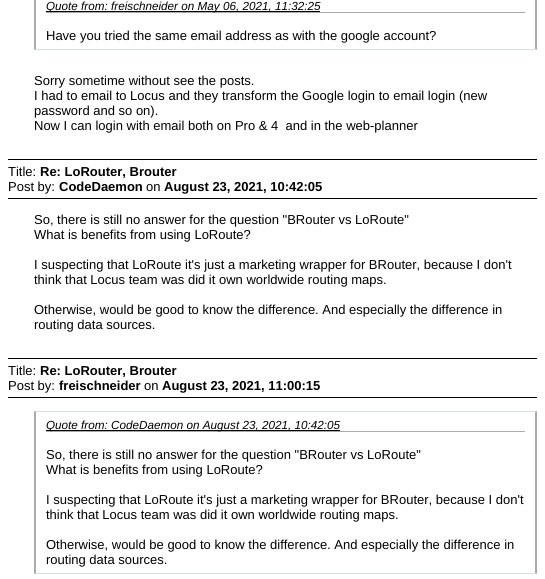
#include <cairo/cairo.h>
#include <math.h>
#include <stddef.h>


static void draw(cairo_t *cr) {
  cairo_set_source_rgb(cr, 1, 1, 1);
  cairo_paint(cr);
  cairo_set_source_rgb(cr, 170 / 255.0, 170 / 255.0, 170 / 255.0);
  cairo_new_path(cr);
  cairo_move_to(cr, 537, -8);
  cairo_line_to(cr, 537, 50);
  cairo_line_to(cr, 535, 49);
  cairo_line_to(cr, 535, -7);
  cairo_close_path(cr);
  cairo_fill(cr);
  cairo_set_source_rgb(cr, 214 / 255.0, 223 / 255.0, 226 / 255.0);
  cairo_new_path(cr);
  cairo_move_to(cr, 537, 50);
  cairo_line_to(cr, 34, 50);
  cairo_line_to(cr, 36, 49);
  cairo_line_to(cr, 535, 49);
  cairo_close_path(cr);
  cairo_fill(cr);
  cairo_set_source_rgb(cr, 170 / 255.0, 170 / 255.0, 170 / 255.0);
  cairo_new_path(cr);
  cairo_move_to(cr, 34, 50);
  cairo_line_to(cr, 34, -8);
  cairo_line_to(cr, 36, -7);
  cairo_line_to(cr, 36, 49);
  cairo_close_path(cr);
  cairo_fill(cr);
  cairo_rectangle(cr, 46, 12, 479, 1);
  cairo_fill(cr);
  cairo_set_source_rgb(cr, 0, 0, 0);
  cairo_rectangle(cr, 46, 11, 274, 1);
  cairo_fill(cr);
  cairo_rectangle(cr, 8, 159, 529, 1);
  cairo_fill(cr);
  cairo_rectangle(cr, 8, 198, 529, 1);
  cairo_fill(cr);
  cairo_rectangle(cr, 8, 358, 529, 1);
  cairo_fill(cr);
  cairo_rectangle(cr, 8, 397, 529, 1);
  cairo_fill(cr);
  cairo_set_source_rgb(cr, 214 / 255.0, 223 / 255.0, 226 / 255.0);
  cairo_new_path(cr);
  cairo_move_to(cr, 34, 411);
  cairo_line_to(cr, 537, 411);
  cairo_line_to(cr, 535, 412);
  cairo_line_to(cr, 36, 412);
  cairo_close_path(cr);
  cairo_fill(cr);
  cairo_set_source_rgb(cr, 170 / 255.0, 170 / 255.0, 170 / 255.0);
  cairo_new_path(cr);
  cairo_move_to(cr, 537, 411);
  cairo_line_to(cr, 537, 574);
  cairo_line_to(cr, 535, 573);
  cairo_line_to(cr, 535, 412);
  cairo_close_path(cr);
  cairo_fill(cr);
  cairo_set_source_rgb(cr, 214 / 255.0, 223 / 255.0, 226 / 255.0);
  cairo_new_path(cr);
  cairo_move_to(cr, 537, 574);
  cairo_line_to(cr, 34, 574);
  cairo_line_to(cr, 36, 573);
  cairo_line_to(cr, 535, 573);
  cairo_close_path(cr);
  cairo_fill(cr);
  cairo_set_source_rgb(cr, 170 / 255.0, 170 / 255.0, 170 / 255.0);
  cairo_new_path(cr);
  cairo_move_to(cr, 34, 574);
  cairo_line_to(cr, 34, 411);
  cairo_line_to(cr, 36, 412);
  cairo_line_to(cr, 36, 573);
  cairo_close_path(cr);
  cairo_fill(cr);
  cairo_rectangle(cr, 46, 431, 479, 1);
  cairo_fill(cr);
  cairo_set_source_rgb(cr, 0, 0, 0);
  cairo_rectangle(cr, 46, 430, 294, 1);
  cairo_fill(cr);
  cairo_select_font_face(cr, "Liberation Sans", CAIRO_FONT_SLANT_ITALIC, CAIRO_FONT_WEIGHT_NORMAL);
  cairo_set_font_size(cr, 11.7);
  cairo_move_to(cr, 46, 10);
  cairo_show_text(cr, "Quote from: freischneider on May 06, 2021, 11:32:25");
  cairo_select_font_face(cr, "Liberation Sans", CAIRO_FONT_SLANT_NORMAL, CAIRO_FONT_WEIGHT_NORMAL);
  cairo_set_font_size(cr, 13);
  cairo_move_to(cr, 46, 40);
  cairo_show_text(cr, "Have you tried the same email address as with the google account?");
  cairo_move_to(cr, 34, 85);
  cairo_show_text(cr, "Sorry sometime without see the posts.");
  cairo_move_to(cr, 34, 100);
  cairo_show_text(cr, "I had to email to Locus and they transform the Google login to email login (new");
  cairo_move_to(cr, 34, 115);
  cairo_show_text(cr, "password and so on).");
  cairo_move_to(cr, 34, 130);
  cairo_show_text(cr, "Now I can login with email both on Pro & 4  and in the web-planner");
  cairo_move_to(cr, 8, 176);
  cairo_show_text(cr, "Title:");
  cairo_select_font_face(cr, "Liberation Sans", CAIRO_FONT_SLANT_NORMAL, CAIRO_FONT_WEIGHT_BOLD);
  cairo_move_to(cr, 40, 176);
  cairo_show_text(cr, "Re: LoRouter, Brouter");
  cairo_select_font_face(cr, "Liberation Sans", CAIRO_FONT_SLANT_NORMAL, CAIRO_FONT_WEIGHT_NORMAL);
  cairo_move_to(cr, 8, 191);
  cairo_show_text(cr, "Post by:");
  cairo_select_font_face(cr, "Liberation Sans", CAIRO_FONT_SLANT_NORMAL, CAIRO_FONT_WEIGHT_BOLD);
  cairo_move_to(cr, 59, 191);
  cairo_show_text(cr, "CodeDaemon");
  cairo_select_font_face(cr, "Liberation Sans", CAIRO_FONT_SLANT_NORMAL, CAIRO_FONT_WEIGHT_NORMAL);
  cairo_move_to(cr, 146, 191);
  cairo_show_text(cr, "on");
  cairo_select_font_face(cr, "Liberation Sans", CAIRO_FONT_SLANT_NORMAL, CAIRO_FONT_WEIGHT_BOLD);
  cairo_move_to(cr, 164, 191);
  cairo_show_text(cr, "August 23, 2021, 10:42:05");
  cairo_select_font_face(cr, "Liberation Sans", CAIRO_FONT_SLANT_NORMAL, CAIRO_FONT_WEIGHT_NORMAL);
  cairo_move_to(cr, 34, 224);
  cairo_show_text(cr, "So, there is still no answer for the question \"BRouter vs LoRoute\"");
  cairo_move_to(cr, 34, 239);
  cairo_show_text(cr, "What is benefits from using LoRoute?");
  cairo_move_to(cr, 34, 269);
  cairo_show_text(cr, "I suspecting that LoRoute it's just a marketing wrapper for BRouter, because I don't");
  cairo_move_to(cr, 34, 284);
  cairo_show_text(cr, "think that Locus team was did it own worldwide routing maps.");
  cairo_move_to(cr, 34, 314);
  cairo_show_text(cr, "Otherwise, would be good to know the difference. And especially the difference in");
  cairo_move_to(cr, 34, 329);
  cairo_show_text(cr, "routing data sources.");
  cairo_move_to(cr, 8, 375);
  cairo_show_text(cr, "Title:");
  cairo_select_font_face(cr, "Liberation Sans", CAIRO_FONT_SLANT_NORMAL, CAIRO_FONT_WEIGHT_BOLD);
  cairo_move_to(cr, 40, 375);
  cairo_show_text(cr, "Re: LoRouter, Brouter");
  cairo_select_font_face(cr, "Liberation Sans", CAIRO_FONT_SLANT_NORMAL, CAIRO_FONT_WEIGHT_NORMAL);
  cairo_move_to(cr, 8, 390);
  cairo_show_text(cr, "Post by:");
  cairo_select_font_face(cr, "Liberation Sans", CAIRO_FONT_SLANT_NORMAL, CAIRO_FONT_WEIGHT_BOLD);
  cairo_move_to(cr, 59, 390);
  cairo_show_text(cr, "freischneider");
  cairo_select_font_face(cr, "Liberation Sans", CAIRO_FONT_SLANT_NORMAL, CAIRO_FONT_WEIGHT_NORMAL);
  cairo_move_to(cr, 144, 390);
  cairo_show_text(cr, "on");
  cairo_select_font_face(cr, "Liberation Sans", CAIRO_FONT_SLANT_NORMAL, CAIRO_FONT_WEIGHT_BOLD);
  cairo_move_to(cr, 162, 390);
  cairo_show_text(cr, "August 23, 2021, 11:00:15");
  cairo_select_font_face(cr, "Liberation Sans", CAIRO_FONT_SLANT_ITALIC, CAIRO_FONT_WEIGHT_NORMAL);
  cairo_set_font_size(cr, 11.7);
  cairo_move_to(cr, 46, 429);
  cairo_show_text(cr, "Quote from: CodeDaemon on August 23, 2021, 10:42:05");
  cairo_select_font_face(cr, "Liberation Sans", CAIRO_FONT_SLANT_NORMAL, CAIRO_FONT_WEIGHT_NORMAL);
  cairo_set_font_size(cr, 13);
  cairo_move_to(cr, 46, 459);
  cairo_show_text(cr, "So, there is still no answer for the question \"BRouter vs LoRoute\"");
  cairo_move_to(cr, 46, 474);
  cairo_show_text(cr, "What is benefits from using LoRoute?");
  cairo_move_to(cr, 46, 504);
  cairo_show_text(cr, "I suspecting that LoRoute it's just a marketing wrapper for BRouter, because I don't");
  cairo_move_to(cr, 46, 519);
  cairo_show_text(cr, "think that Locus team was did it own worldwide routing maps.");
  cairo_move_to(cr, 46, 549);
  cairo_show_text(cr, "Otherwise, would be good to know the difference. And especially the difference in");
  cairo_move_to(cr, 46, 564);
  cairo_show_text(cr, "routing data sources.");
}

int main(void) {
  cairo_surface_t *surface = cairo_image_surface_create(CAIRO_FORMAT_RGB24, 545, 579);
  cairo_t *cr = cairo_create(surface);
  cairo_font_options_t *options = cairo_font_options_create();
  cairo_font_options_set_hint_metrics(options, CAIRO_HINT_METRICS_OFF);
  cairo_font_options_set_hint_style(options, CAIRO_HINT_STYLE_NONE);
  cairo_set_font_options(cr, options);
  cairo_set_miter_limit(cr, 4);
  draw(cr);
  cairo_surface_write_to_png(surface, "out.png");
  cairo_font_options_destroy(options);
  cairo_destroy(cr);
  cairo_surface_destroy(surface);
  return 0;
}
